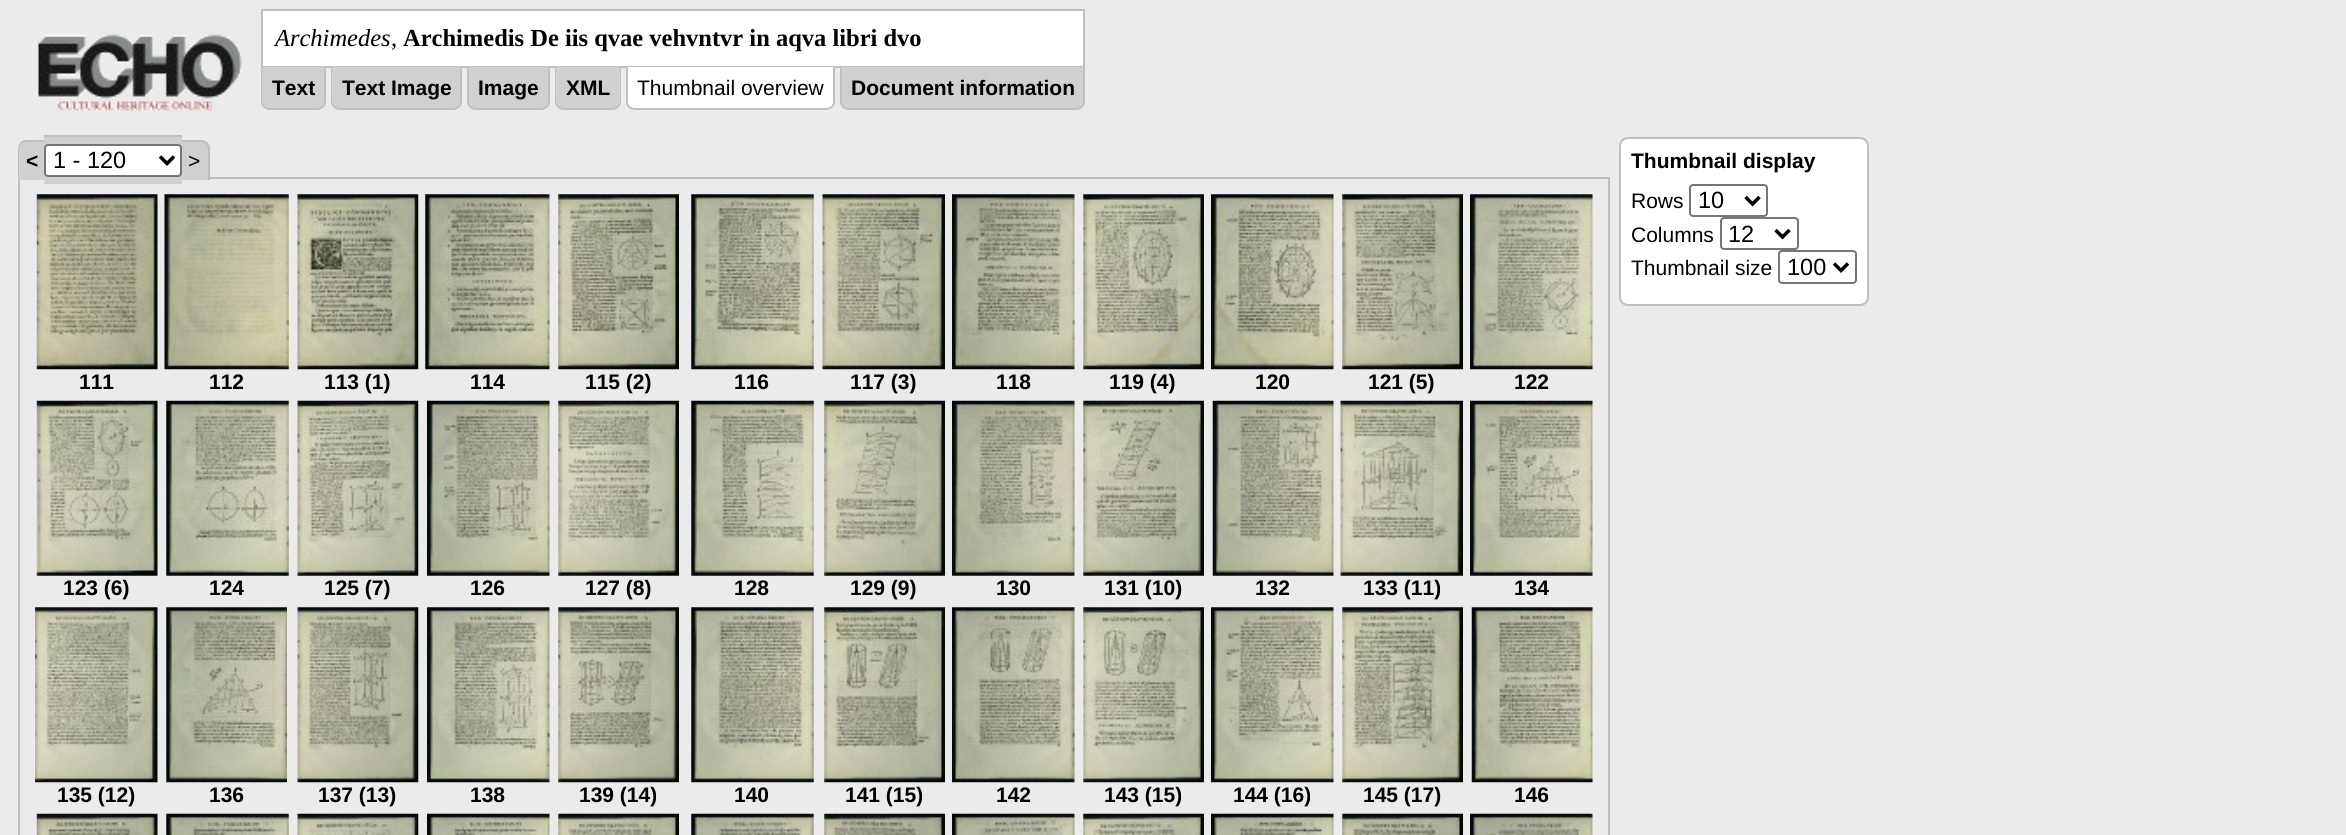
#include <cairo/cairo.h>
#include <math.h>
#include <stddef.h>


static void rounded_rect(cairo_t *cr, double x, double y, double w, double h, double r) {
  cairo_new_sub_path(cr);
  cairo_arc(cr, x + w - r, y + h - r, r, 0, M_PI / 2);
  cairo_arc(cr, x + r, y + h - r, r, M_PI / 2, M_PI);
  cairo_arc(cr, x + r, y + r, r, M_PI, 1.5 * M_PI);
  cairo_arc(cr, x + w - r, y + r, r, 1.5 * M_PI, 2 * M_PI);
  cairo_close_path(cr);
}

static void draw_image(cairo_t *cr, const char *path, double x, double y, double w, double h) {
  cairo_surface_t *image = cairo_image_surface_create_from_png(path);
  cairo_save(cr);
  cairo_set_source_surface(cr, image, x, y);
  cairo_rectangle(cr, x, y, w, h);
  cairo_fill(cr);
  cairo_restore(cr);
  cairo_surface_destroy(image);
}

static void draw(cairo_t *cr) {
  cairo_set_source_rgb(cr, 235 / 255.0, 235 / 255.0, 235 / 255.0);
  cairo_paint(cr);
  draw_image(cr, "images/1.png", 38, 34, 204, 77);
  cairo_set_source_rgb(cr, 1, 1, 1);
  cairo_rectangle(cr, 262, 10, 822, 57);
  cairo_fill_preserve(cr);
  cairo_set_source_rgb(cr, 192 / 255.0, 192 / 255.0, 192 / 255.0);
  cairo_stroke(cr);
  cairo_set_source_rgb(cr, 208 / 255.0, 208 / 255.0, 208 / 255.0);
  cairo_new_path(cr);
  cairo_move_to(cr, 261, 67);
  cairo_line_to(cr, 326, 67);
  cairo_line_to(cr, 326, 101);
  cairo_curve_to(cr, 326, 106, 322, 110, 317, 110);
  cairo_line_to(cr, 270, 110);
  cairo_curve_to(cr, 265, 110, 261, 106, 261, 101);
  cairo_close_path(cr);
  cairo_fill(cr);
  cairo_set_source_rgb(cr, 192 / 255.0, 192 / 255.0, 192 / 255.0);
  cairo_set_fill_rule(cr, CAIRO_FILL_RULE_EVEN_ODD);
  cairo_new_path(cr);
  cairo_move_to(cr, 261, 66);
  cairo_line_to(cr, 326, 66);
  cairo_line_to(cr, 326, 102);
  cairo_curve_to(cr, 326, 106, 322, 110, 317, 110);
  cairo_line_to(cr, 270, 110);
  cairo_curve_to(cr, 265, 110, 261, 106, 261, 102);
  cairo_close_path(cr);
  cairo_move_to(cr, 262, 66);
  cairo_line_to(cr, 324, 66);
  cairo_line_to(cr, 324, 102);
  cairo_curve_to(cr, 324, 105, 321, 108, 317, 108);
  cairo_line_to(cr, 270, 108);
  cairo_curve_to(cr, 266, 108, 262, 105, 262, 102);
  cairo_close_path(cr);
  cairo_fill(cr);
  cairo_set_source_rgb(cr, 208 / 255.0, 208 / 255.0, 208 / 255.0);
  cairo_new_path(cr);
  cairo_move_to(cr, 331, 67);
  cairo_line_to(cr, 462, 67);
  cairo_line_to(cr, 462, 101);
  cairo_curve_to(cr, 462, 106, 458, 110, 453, 110);
  cairo_line_to(cr, 340, 110);
  cairo_curve_to(cr, 335, 110, 331, 106, 331, 101);
  cairo_close_path(cr);
  cairo_fill(cr);
  cairo_set_source_rgb(cr, 192 / 255.0, 192 / 255.0, 192 / 255.0);
  cairo_new_path(cr);
  cairo_move_to(cr, 331, 66);
  cairo_line_to(cr, 462, 66);
  cairo_line_to(cr, 462, 102);
  cairo_curve_to(cr, 462, 106, 458, 110, 453, 110);
  cairo_line_to(cr, 340, 110);
  cairo_curve_to(cr, 335, 110, 331, 106, 331, 102);
  cairo_close_path(cr);
  cairo_move_to(cr, 332, 66);
  cairo_line_to(cr, 460, 66);
  cairo_line_to(cr, 460, 102);
  cairo_curve_to(cr, 460, 105, 457, 108, 453, 108);
  cairo_line_to(cr, 340, 108);
  cairo_curve_to(cr, 336, 108, 332, 105, 332, 102);
  cairo_close_path(cr);
  cairo_fill(cr);
  cairo_set_source_rgb(cr, 208 / 255.0, 208 / 255.0, 208 / 255.0);
  cairo_new_path(cr);
  cairo_move_to(cr, 467, 67);
  cairo_line_to(cr, 550, 67);
  cairo_line_to(cr, 550, 101);
  cairo_curve_to(cr, 550, 106, 546, 110, 541, 110);
  cairo_line_to(cr, 476, 110);
  cairo_curve_to(cr, 471, 110, 467, 106, 467, 101);
  cairo_close_path(cr);
  cairo_fill(cr);
  cairo_set_source_rgb(cr, 192 / 255.0, 192 / 255.0, 192 / 255.0);
  cairo_new_path(cr);
  cairo_move_to(cr, 467, 66);
  cairo_line_to(cr, 550, 66);
  cairo_line_to(cr, 550, 102);
  cairo_curve_to(cr, 550, 106, 546, 110, 541, 110);
  cairo_line_to(cr, 476, 110);
  cairo_curve_to(cr, 471, 110, 467, 106, 467, 102);
  cairo_close_path(cr);
  cairo_move_to(cr, 469, 66);
  cairo_line_to(cr, 548, 66);
  cairo_line_to(cr, 548, 102);
  cairo_curve_to(cr, 548, 105, 545, 108, 541, 108);
  cairo_line_to(cr, 476, 108);
  cairo_curve_to(cr, 472, 108, 469, 105, 469, 102);
  cairo_close_path(cr);
  cairo_fill(cr);
  cairo_set_source_rgb(cr, 208 / 255.0, 208 / 255.0, 208 / 255.0);
  cairo_new_path(cr);
  cairo_move_to(cr, 555, 67);
  cairo_line_to(cr, 621, 67);
  cairo_line_to(cr, 621, 101);
  cairo_curve_to(cr, 621, 106, 617, 110, 612, 110);
  cairo_line_to(cr, 564, 110);
  cairo_curve_to(cr, 559, 110, 555, 106, 555, 101);
  cairo_close_path(cr);
  cairo_fill(cr);
  cairo_set_source_rgb(cr, 192 / 255.0, 192 / 255.0, 192 / 255.0);
  cairo_new_path(cr);
  cairo_move_to(cr, 555, 66);
  cairo_line_to(cr, 621, 66);
  cairo_line_to(cr, 621, 102);
  cairo_curve_to(cr, 621, 106, 617, 110, 612, 110);
  cairo_line_to(cr, 564, 110);
  cairo_curve_to(cr, 559, 110, 555, 106, 555, 102);
  cairo_close_path(cr);
  cairo_move_to(cr, 556, 66);
  cairo_line_to(cr, 620, 66);
  cairo_line_to(cr, 620, 102);
  cairo_curve_to(cr, 620, 105, 616, 108, 612, 108);
  cairo_line_to(cr, 564, 108);
  cairo_curve_to(cr, 560, 108, 556, 105, 556, 102);
  cairo_close_path(cr);
  cairo_fill(cr);
  cairo_set_source_rgb(cr, 1, 1, 1);
  cairo_new_path(cr);
  cairo_move_to(cr, 627, 67);
  cairo_line_to(cr, 835, 67);
  cairo_line_to(cr, 835, 101);
  cairo_curve_to(cr, 835, 106, 831, 110, 826, 110);
  cairo_line_to(cr, 636, 110);
  cairo_curve_to(cr, 631, 110, 627, 106, 627, 101);
  cairo_close_path(cr);
  cairo_fill(cr);
  cairo_set_source_rgb(cr, 192 / 255.0, 192 / 255.0, 192 / 255.0);
  cairo_new_path(cr);
  cairo_move_to(cr, 626, 66);
  cairo_line_to(cr, 835, 66);
  cairo_line_to(cr, 835, 102);
  cairo_curve_to(cr, 835, 106, 831, 110, 826, 110);
  cairo_line_to(cr, 635, 110);
  cairo_curve_to(cr, 630, 110, 626, 106, 626, 102);
  cairo_close_path(cr);
  cairo_move_to(cr, 628, 66);
  cairo_line_to(cr, 833, 66);
  cairo_line_to(cr, 833, 102);
  cairo_curve_to(cr, 833, 105, 830, 108, 826, 108);
  cairo_line_to(cr, 635, 108);
  cairo_curve_to(cr, 631, 108, 628, 105, 628, 102);
  cairo_close_path(cr);
  cairo_fill(cr);
  cairo_set_source_rgb(cr, 208 / 255.0, 208 / 255.0, 208 / 255.0);
  cairo_new_path(cr);
  cairo_move_to(cr, 840, 67);
  cairo_line_to(cr, 1085, 67);
  cairo_line_to(cr, 1085, 101);
  cairo_curve_to(cr, 1085, 106, 1081, 110, 1076, 110);
  cairo_line_to(cr, 849, 110);
  cairo_curve_to(cr, 844, 110, 840, 106, 840, 101);
  cairo_close_path(cr);
  cairo_fill(cr);
  cairo_set_source_rgb(cr, 192 / 255.0, 192 / 255.0, 192 / 255.0);
  cairo_new_path(cr);
  cairo_move_to(cr, 840, 66);
  cairo_line_to(cr, 1085, 66);
  cairo_line_to(cr, 1085, 102);
  cairo_curve_to(cr, 1085, 106, 1081, 110, 1076, 110);
  cairo_line_to(cr, 849, 110);
  cairo_curve_to(cr, 844, 110, 840, 106, 840, 102);
  cairo_close_path(cr);
  cairo_move_to(cr, 842, 66);
  cairo_line_to(cr, 1083, 66);
  cairo_line_to(cr, 1083, 102);
  cairo_curve_to(cr, 1083, 105, 1080, 108, 1076, 108);
  cairo_line_to(cr, 849, 108);
  cairo_curve_to(cr, 845, 108, 842, 105, 842, 102);
  cairo_close_path(cr);
  cairo_fill(cr);
  cairo_rectangle(cr, 19, 178, 1590, 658);
  cairo_stroke(cr);
  cairo_set_source_rgb(cr, 208 / 255.0, 208 / 255.0, 208 / 255.0);
  cairo_new_path(cr);
  cairo_move_to(cr, 27, 140);
  cairo_line_to(cr, 39, 140);
  cairo_line_to(cr, 39, 180);
  cairo_line_to(cr, 18, 180);
  cairo_line_to(cr, 18, 149);
  cairo_curve_to(cr, 18, 144, 22, 140, 27, 140);
  cairo_close_path(cr);
  cairo_fill(cr);
  cairo_set_source_rgb(cr, 192 / 255.0, 192 / 255.0, 192 / 255.0);
  cairo_new_path(cr);
  cairo_move_to(cr, 26, 140);
  cairo_line_to(cr, 38, 140);
  cairo_line_to(cr, 38, 180);
  cairo_line_to(cr, 18, 180);
  cairo_line_to(cr, 18, 149);
  cairo_curve_to(cr, 18, 144, 21, 140, 26, 140);
  cairo_close_path(cr);
  cairo_move_to(cr, 26, 142);
  cairo_line_to(cr, 38, 142);
  cairo_line_to(cr, 38, 180);
  cairo_line_to(cr, 19, 180);
  cairo_line_to(cr, 19, 149);
  cairo_curve_to(cr, 19, 145, 22, 142, 26, 142);
  cairo_close_path(cr);
  cairo_fill(cr);
  cairo_set_source_rgb(cr, 208 / 255.0, 208 / 255.0, 208 / 255.0);
  cairo_rectangle(cr, 39, 140, 5, 40);
  cairo_fill(cr);
  cairo_set_source_rgb(cr, 192 / 255.0, 192 / 255.0, 192 / 255.0);
  cairo_rectangle(cr, 39, 140, 5, 2);
  cairo_fill(cr);
  cairo_set_source_rgb(cr, 208 / 255.0, 208 / 255.0, 208 / 255.0);
  cairo_rectangle(cr, 44, 137, 138, 47);
  cairo_fill(cr);
  cairo_set_source_rgb(cr, 192 / 255.0, 192 / 255.0, 192 / 255.0);
  cairo_rectangle(cr, 44, 135, 138, 2);
  cairo_fill(cr);
  cairo_set_source_rgb(cr, 208 / 255.0, 208 / 255.0, 208 / 255.0);
  cairo_rectangle(cr, 182, 140, 7, 40);
  cairo_fill(cr);
  cairo_set_source_rgb(cr, 192 / 255.0, 192 / 255.0, 192 / 255.0);
  cairo_rectangle(cr, 182, 140, 7, 2);
  cairo_fill(cr);
  cairo_set_source_rgb(cr, 208 / 255.0, 208 / 255.0, 208 / 255.0);
  cairo_new_path(cr);
  cairo_move_to(cr, 189, 140);
  cairo_line_to(cr, 201, 140);
  cairo_curve_to(cr, 206, 140, 210, 144, 210, 149);
  cairo_line_to(cr, 210, 180);
  cairo_line_to(cr, 189, 180);
  cairo_close_path(cr);
  cairo_fill(cr);
  cairo_set_source_rgb(cr, 192 / 255.0, 192 / 255.0, 192 / 255.0);
  cairo_new_path(cr);
  cairo_move_to(cr, 189, 140);
  cairo_line_to(cr, 201, 140);
  cairo_curve_to(cr, 206, 140, 210, 144, 210, 149);
  cairo_line_to(cr, 210, 180);
  cairo_line_to(cr, 189, 180);
  cairo_close_path(cr);
  cairo_move_to(cr, 189, 142);
  cairo_line_to(cr, 201, 142);
  cairo_curve_to(cr, 205, 142, 208, 145, 208, 149);
  cairo_line_to(cr, 208, 180);
  cairo_line_to(cr, 189, 180);
  cairo_close_path(cr);
  cairo_fill(cr);
  cairo_set_source_rgb(cr, 1, 1, 1);
  rounded_rect(cr, 45, 145, 136, 31, 3);
  cairo_fill_preserve(cr);
  cairo_set_source_rgb(cr, 118 / 255.0, 118 / 255.0, 118 / 255.0);
  cairo_stroke(cr);
  cairo_new_path(cr);
  cairo_move_to(cr, 160, 156.5);
  cairo_line_to(cr, 167, 163.5);
  cairo_line_to(cr, 174, 156.5);
  cairo_set_source_rgb(cr, 0, 0, 0);
  cairo_set_line_width(cr, 3.5);
  cairo_stroke(cr);
  draw_image(cr, "images/2.png", 36, 194, 122, 176);
  draw_image(cr, "images/3.png", 164, 194, 125, 176);
  draw_image(cr, "images/4.png", 297, 194, 122, 176);
  draw_image(cr, "images/5.png", 425, 194, 125, 176);
  draw_image(cr, "images/6.png", 558, 194, 121, 176);
  draw_image(cr, "images/7.png", 691, 194, 123, 176);
  draw_image(cr, "images/8.png", 822, 194, 123, 176);
  draw_image(cr, "images/9.png", 952, 194, 123, 176);
  draw_image(cr, "images/10.png", 1083, 194, 121, 176);
  draw_image(cr, "images/11.png", 1211, 194, 123, 176);
  draw_image(cr, "images/12.png", 1342, 194, 121, 176);
  draw_image(cr, "images/13.png", 1470, 194, 123, 176);
  draw_image(cr, "images/14.png", 36, 400, 122, 176);
  draw_image(cr, "images/15.png", 166, 400, 123, 176);
  draw_image(cr, "images/16.png", 297, 400, 122, 176);
  draw_image(cr, "images/17.png", 427, 400, 123, 176);
  draw_image(cr, "images/18.png", 558, 400, 121, 176);
  draw_image(cr, "images/19.png", 691, 400, 123, 176);
  draw_image(cr, "images/20.png", 824, 400, 121, 176);
  draw_image(cr, "images/21.png", 952, 400, 123, 176);
  draw_image(cr, "images/22.png", 1083, 400, 121, 176);
  draw_image(cr, "images/23.png", 1212, 400, 122, 176);
  draw_image(cr, "images/24.png", 1340, 400, 123, 176);
  draw_image(cr, "images/25.png", 1470, 400, 123, 176);
  draw_image(cr, "images/26.png", 35, 607, 123, 176);
  draw_image(cr, "images/27.png", 166, 607, 121, 176);
  draw_image(cr, "images/28.png", 297, 607, 122, 176);
  draw_image(cr, "images/29.png", 427, 607, 123, 176);
  draw_image(cr, "images/30.png", 558, 607, 121, 176);
  draw_image(cr, "images/31.png", 691, 607, 123, 176);
  draw_image(cr, "images/32.png", 824, 607, 121, 176);
  draw_image(cr, "images/33.png", 952, 607, 123, 176);
  draw_image(cr, "images/34.png", 1083, 607, 121, 176);
  draw_image(cr, "images/35.png", 1211, 607, 123, 176);
  draw_image(cr, "images/36.png", 1342, 607, 121, 176);
  draw_image(cr, "images/37.png", 1471, 607, 122, 176);
  draw_image(cr, "images/38.png", 36, 813, 122, 22);
  draw_image(cr, "images/39.png", 166, 813, 123, 22);
  draw_image(cr, "images/40.png", 297, 813, 122, 22);
  draw_image(cr, "images/41.png", 427, 813, 123, 22);
  draw_image(cr, "images/42.png", 558, 813, 121, 22);
  draw_image(cr, "images/43.png", 691, 813, 123, 22);
  draw_image(cr, "images/44.png", 824, 813, 121, 22);
  draw_image(cr, "images/45.png", 952, 813, 123, 22);
  draw_image(cr, "images/46.png", 1083, 813, 121, 22);
  draw_image(cr, "images/47.png", 1211, 813, 123, 22);
  draw_image(cr, "images/48.png", 1342, 813, 121, 22);
  draw_image(cr, "images/49.png", 1470, 813, 123, 22);
  cairo_set_source_rgb(cr, 1, 1, 1);
  rounded_rect(cr, 1620, 138, 248, 167, 8);
  cairo_fill_preserve(cr);
  cairo_set_source_rgb(cr, 192 / 255.0, 192 / 255.0, 192 / 255.0);
  cairo_set_line_width(cr, 2);
  cairo_stroke(cr);
  rounded_rect(cr, 1690, 185, 77, 31, 3);
  cairo_set_source_rgb(cr, 118 / 255.0, 118 / 255.0, 118 / 255.0);
  cairo_stroke(cr);
  cairo_new_path(cr);
  cairo_move_to(cr, 1745.5, 197);
  cairo_line_to(cr, 1752.5, 204);
  cairo_line_to(cr, 1759.5, 197);
  cairo_set_source_rgb(cr, 0, 0, 0);
  cairo_set_line_width(cr, 3.5);
  cairo_stroke(cr);
  rounded_rect(cr, 1721, 218, 77, 31, 3);
  cairo_set_source_rgb(cr, 118 / 255.0, 118 / 255.0, 118 / 255.0);
  cairo_set_line_width(cr, 2);
  cairo_stroke(cr);
  cairo_new_path(cr);
  cairo_move_to(cr, 1775.5, 230);
  cairo_line_to(cr, 1782.5, 237);
  cairo_line_to(cr, 1789.5, 230);
  cairo_set_source_rgb(cr, 0, 0, 0);
  cairo_set_line_width(cr, 3.5);
  cairo_stroke(cr);
  rounded_rect(cr, 1779, 251, 77, 32, 3);
  cairo_set_source_rgb(cr, 118 / 255.0, 118 / 255.0, 118 / 255.0);
  cairo_set_line_width(cr, 2);
  cairo_stroke(cr);
  cairo_new_path(cr);
  cairo_move_to(cr, 1834, 263.5);
  cairo_line_to(cr, 1841, 270.5);
  cairo_line_to(cr, 1848, 263.5);
  cairo_set_source_rgb(cr, 0, 0, 0);
  cairo_set_line_width(cr, 3.5);
  cairo_stroke(cr);
  cairo_select_font_face(cr, "Liberation Serif", CAIRO_FONT_SLANT_ITALIC, CAIRO_FONT_WEIGHT_NORMAL);
  cairo_set_font_size(cr, 24.5);
  cairo_move_to(cr, 275, 46);
  cairo_show_text(cr, "Archimedes");
  cairo_select_font_face(cr, "Liberation Serif", CAIRO_FONT_SLANT_NORMAL, CAIRO_FONT_WEIGHT_NORMAL);
  cairo_move_to(cr, 391, 46);
  cairo_show_text(cr, ",");
  cairo_select_font_face(cr, "Liberation Serif", CAIRO_FONT_SLANT_NORMAL, CAIRO_FONT_WEIGHT_BOLD);
  cairo_move_to(cr, 403, 46);
  cairo_show_text(cr, "Archimedis De iis qvae vehvntvr in aqva libri dvo");
  cairo_select_font_face(cr, "Liberation Sans", CAIRO_FONT_SLANT_NORMAL, CAIRO_FONT_WEIGHT_BOLD);
  cairo_set_font_size(cr, 21);
  cairo_move_to(cr, 272, 95);
  cairo_show_text(cr, "Text");
  cairo_move_to(cr, 342, 95);
  cairo_show_text(cr, "Text Image");
  cairo_move_to(cr, 478, 95);
  cairo_show_text(cr, "Image");
  cairo_move_to(cr, 566, 95);
  cairo_show_text(cr, "XML");
  cairo_select_font_face(cr, "Liberation Sans", CAIRO_FONT_SLANT_NORMAL, CAIRO_FONT_WEIGHT_NORMAL);
  cairo_move_to(cr, 637, 95);
  cairo_show_text(cr, "Thumbnail overview");
  cairo_select_font_face(cr, "Liberation Sans", CAIRO_FONT_SLANT_NORMAL, CAIRO_FONT_WEIGHT_BOLD);
  cairo_move_to(cr, 851, 95);
  cairo_show_text(cr, "Document information");
  cairo_move_to(cr, 26, 168);
  cairo_show_text(cr, "<");
  cairo_select_font_face(cr, "Liberation Sans", CAIRO_FONT_SLANT_NORMAL, CAIRO_FONT_WEIGHT_NORMAL);
  cairo_set_font_size(cr, 23.5);
  cairo_move_to(cr, 53, 168);
  cairo_show_text(cr, "1 - 120");
  cairo_set_font_size(cr, 21);
  cairo_move_to(cr, 188, 168);
  cairo_show_text(cr, ">");
  cairo_select_font_face(cr, "Liberation Sans", CAIRO_FONT_SLANT_NORMAL, CAIRO_FONT_WEIGHT_BOLD);
  cairo_move_to(cr, 79, 389);
  cairo_show_text(cr, "111");
  cairo_move_to(cr, 209, 389);
  cairo_show_text(cr, "112");
  cairo_move_to(cr, 324, 389);
  cairo_show_text(cr, "113 (1)");
  cairo_move_to(cr, 470, 389);
  cairo_show_text(cr, "114");
  cairo_move_to(cr, 585, 389);
  cairo_show_text(cr, "115 (2)");
  cairo_move_to(cr, 734, 389);
  cairo_show_text(cr, "116");
  cairo_move_to(cr, 850, 389);
  cairo_show_text(cr, "117 (3)");
  cairo_move_to(cr, 996, 389);
  cairo_show_text(cr, "118");
  cairo_move_to(cr, 1109, 389);
  cairo_show_text(cr, "119 (4)");
  cairo_move_to(cr, 1255, 389);
  cairo_show_text(cr, "120");
  cairo_move_to(cr, 1368, 389);
  cairo_show_text(cr, "121 (5)");
  cairo_move_to(cr, 1514, 389);
  cairo_show_text(cr, "122");
  cairo_move_to(cr, 63, 595);
  cairo_show_text(cr, "123 (6)");
  cairo_move_to(cr, 209, 595);
  cairo_show_text(cr, "124");
  cairo_move_to(cr, 324, 595);
  cairo_show_text(cr, "125 (7)");
  cairo_move_to(cr, 470, 595);
  cairo_show_text(cr, "126");
  cairo_move_to(cr, 585, 595);
  cairo_show_text(cr, "127 (8)");
  cairo_move_to(cr, 734, 595);
  cairo_show_text(cr, "128");
  cairo_move_to(cr, 850, 595);
  cairo_show_text(cr, "129 (9)");
  cairo_move_to(cr, 996, 595);
  cairo_show_text(cr, "130");
  cairo_move_to(cr, 1104, 595);
  cairo_show_text(cr, "131 (10)");
  cairo_move_to(cr, 1255, 595);
  cairo_show_text(cr, "132");
  cairo_move_to(cr, 1363, 595);
  cairo_show_text(cr, "133 (11)");
  cairo_move_to(cr, 1514, 595);
  cairo_show_text(cr, "134");
  cairo_move_to(cr, 57, 802);
  cairo_show_text(cr, "135 (12)");
  cairo_move_to(cr, 209, 802);
  cairo_show_text(cr, "136");
  cairo_move_to(cr, 318, 802);
  cairo_show_text(cr, "137 (13)");
  cairo_move_to(cr, 470, 802);
  cairo_show_text(cr, "138");
  cairo_move_to(cr, 579, 802);
  cairo_show_text(cr, "139 (14)");
  cairo_move_to(cr, 734, 802);
  cairo_show_text(cr, "140");
  cairo_move_to(cr, 845, 802);
  cairo_show_text(cr, "141 (15)");
  cairo_move_to(cr, 996, 802);
  cairo_show_text(cr, "142");
  cairo_move_to(cr, 1104, 802);
  cairo_show_text(cr, "143 (15)");
  cairo_move_to(cr, 1233, 802);
  cairo_show_text(cr, "144 (16)");
  cairo_move_to(cr, 1363, 802);
  cairo_show_text(cr, "145 (17)");
  cairo_move_to(cr, 1514, 802);
  cairo_show_text(cr, "146");
  cairo_move_to(cr, 1631, 168);
  cairo_show_text(cr, "Thumbnail display");
  cairo_select_font_face(cr, "Liberation Sans", CAIRO_FONT_SLANT_NORMAL, CAIRO_FONT_WEIGHT_NORMAL);
  cairo_move_to(cr, 1631, 208);
  cairo_show_text(cr, "Rows");
  cairo_set_font_size(cr, 23.5);
  cairo_move_to(cr, 1698, 208);
  cairo_show_text(cr, "10");
  cairo_set_font_size(cr, 21);
  cairo_move_to(cr, 1631, 242);
  cairo_show_text(cr, "Columns");
  cairo_set_font_size(cr, 23.5);
  cairo_move_to(cr, 1728, 242);
  cairo_show_text(cr, "12");
  cairo_set_font_size(cr, 21);
  cairo_move_to(cr, 1631, 275);
  cairo_show_text(cr, "Thumbnail size");
  cairo_set_font_size(cr, 23.5);
  cairo_move_to(cr, 1787, 275);
  cairo_show_text(cr, "100");
}

int main(void) {
  cairo_surface_t *surface = cairo_image_surface_create(CAIRO_FORMAT_RGB24, 2346, 835);
  cairo_t *cr = cairo_create(surface);
  cairo_font_options_t *options = cairo_font_options_create();
  cairo_font_options_set_hint_metrics(options, CAIRO_HINT_METRICS_OFF);
  cairo_font_options_set_hint_style(options, CAIRO_HINT_STYLE_NONE);
  cairo_set_font_options(cr, options);
  cairo_set_miter_limit(cr, 4);
  draw(cr);
  cairo_surface_write_to_png(surface, "out.png");
  cairo_font_options_destroy(options);
  cairo_destroy(cr);
  cairo_surface_destroy(surface);
  return 0;
}
